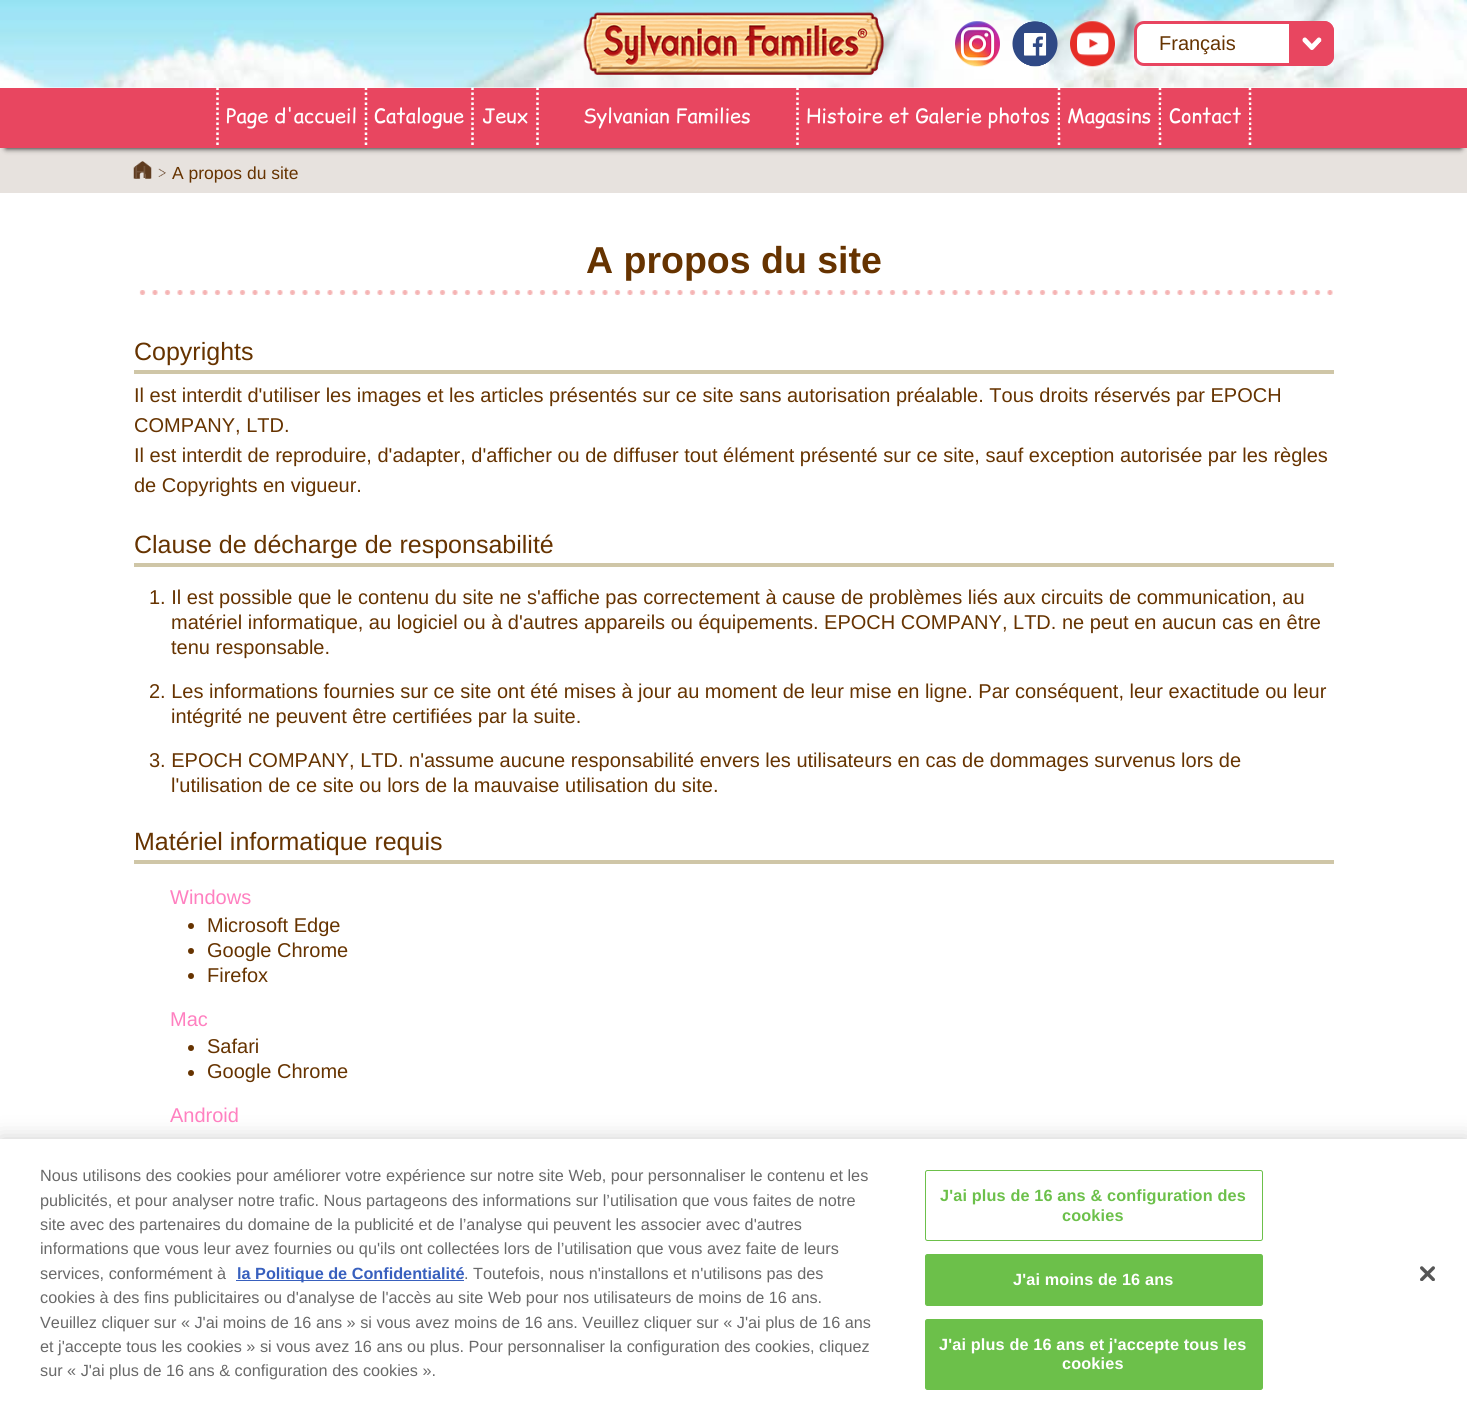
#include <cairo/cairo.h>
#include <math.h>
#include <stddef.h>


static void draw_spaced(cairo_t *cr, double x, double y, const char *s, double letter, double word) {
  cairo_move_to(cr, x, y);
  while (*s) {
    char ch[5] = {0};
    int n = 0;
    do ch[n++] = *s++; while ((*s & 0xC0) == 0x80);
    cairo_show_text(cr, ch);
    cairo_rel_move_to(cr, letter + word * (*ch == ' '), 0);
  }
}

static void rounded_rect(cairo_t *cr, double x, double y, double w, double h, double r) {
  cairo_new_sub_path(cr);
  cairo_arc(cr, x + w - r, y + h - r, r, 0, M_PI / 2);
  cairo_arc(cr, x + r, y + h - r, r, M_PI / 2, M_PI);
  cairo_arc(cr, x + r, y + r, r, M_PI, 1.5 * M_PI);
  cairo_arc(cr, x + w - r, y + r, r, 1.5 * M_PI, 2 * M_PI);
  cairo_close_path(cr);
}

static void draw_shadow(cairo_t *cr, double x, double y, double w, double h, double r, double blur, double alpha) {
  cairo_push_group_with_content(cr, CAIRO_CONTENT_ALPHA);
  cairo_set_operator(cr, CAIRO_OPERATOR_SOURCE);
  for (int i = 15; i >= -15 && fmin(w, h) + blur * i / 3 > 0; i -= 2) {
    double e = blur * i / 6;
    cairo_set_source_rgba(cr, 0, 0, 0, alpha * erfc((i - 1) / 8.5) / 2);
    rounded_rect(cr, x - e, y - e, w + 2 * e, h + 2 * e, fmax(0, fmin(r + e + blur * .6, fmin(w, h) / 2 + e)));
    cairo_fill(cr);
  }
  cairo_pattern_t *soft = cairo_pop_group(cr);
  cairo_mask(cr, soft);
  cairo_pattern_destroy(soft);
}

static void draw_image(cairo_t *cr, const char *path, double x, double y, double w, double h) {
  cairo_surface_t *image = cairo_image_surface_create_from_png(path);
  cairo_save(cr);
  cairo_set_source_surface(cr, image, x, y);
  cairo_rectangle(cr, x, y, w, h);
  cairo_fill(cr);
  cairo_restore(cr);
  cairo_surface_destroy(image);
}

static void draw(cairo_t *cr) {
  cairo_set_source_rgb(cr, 1, 1, 1);
  cairo_paint(cr);
  draw_image(cr, "images/1.png", 0, 0, 1467, 88);
  draw_image(cr, "images/2.png", 583, 12, 301, 63);
  cairo_set_source_rgb(cr, 231 / 255.0, 226 / 255.0, 222 / 255.0);
  cairo_rectangle(cr, 0, 148, 1467, 45);
  cairo_fill(cr);
  cairo_set_source_rgb(cr, 0, 0, 0);
  draw_shadow(cr, 6, 100, 1455, 48, 0, 3, 1);
  cairo_set_source_rgb(cr, 232 / 255.0, 70 / 255.0, 96 / 255.0);
  cairo_rectangle(cr, 0, 88, 1467, 60);
  cairo_fill(cr);
  draw_image(cr, "images/3.png", 955, 21, 45, 46);
  draw_image(cr, "images/4.png", 1012, 21, 46, 46);
  draw_image(cr, "images/5.png", 1070, 21, 45, 46);
  cairo_set_source_rgb(cr, 1, 1, 1);
  rounded_rect(cr, 1135.5, 22.5, 197, 42, 8.5);
  cairo_fill_preserve(cr);
  cairo_set_source_rgb(cr, 232 / 255.0, 69 / 255.0, 96 / 255.0);
  cairo_set_line_width(cr, 3);
  cairo_stroke(cr);
  cairo_set_source_rgb(cr, 232 / 255.0, 70 / 255.0, 96 / 255.0);
  cairo_new_path(cr);
  cairo_move_to(cr, 1289, 21);
  cairo_line_to(cr, 1324, 21);
  cairo_curve_to(cr, 1329.5, 21, 1334, 25.5, 1334, 31);
  cairo_line_to(cr, 1334, 56);
  cairo_curve_to(cr, 1334, 61.5, 1329.5, 66, 1324, 66);
  cairo_line_to(cr, 1289, 66);
  cairo_close_path(cr);
  cairo_fill(cr);
  draw_image(cr, "images/6.png", 1302, 37, 20, 13);
  cairo_new_path(cr);
  cairo_move_to(cr, 217.5, 87.5);
  cairo_line_to(cr, 217.5, 147.5);
  cairo_set_source_rgb(cr, 1, 1, 1);
  cairo_set_line_width(cr, 2.5);
  cairo_set_dash(cr, (double[]){2.5, 2.5}, 2, 0);
  cairo_stroke(cr);
  cairo_new_path(cr);
  cairo_move_to(cr, 366, 87.5);
  cairo_line_to(cr, 366, 147.5);
  cairo_stroke(cr);
  cairo_new_path(cr);
  cairo_move_to(cr, 472.5, 87.5);
  cairo_line_to(cr, 472.5, 147.5);
  cairo_stroke(cr);
  cairo_new_path(cr);
  cairo_move_to(cr, 537.5, 87.5);
  cairo_line_to(cr, 537.5, 147.5);
  cairo_stroke(cr);
  cairo_new_path(cr);
  cairo_move_to(cr, 797.5, 87.5);
  cairo_line_to(cr, 797.5, 147.5);
  cairo_stroke(cr);
  cairo_new_path(cr);
  cairo_move_to(cr, 1059, 87.5);
  cairo_line_to(cr, 1059, 147.5);
  cairo_stroke(cr);
  rounded_rect(cr, 1064, 92, 91, 50, 15);
  cairo_set_source_rgb(cr, 232 / 255.0, 70 / 255.0, 96 / 255.0);
  cairo_set_line_width(cr, 8);
  cairo_set_dash(cr, NULL, 0, 0);
  cairo_stroke(cr);
  cairo_new_path(cr);
  cairo_move_to(cr, 1250, 87.5);
  cairo_line_to(cr, 1250, 147.5);
  cairo_set_source_rgb(cr, 1, 1, 1);
  cairo_set_line_width(cr, 2.5);
  cairo_set_dash(cr, (double[]){2.5, 2.5}, 2, 0);
  cairo_stroke(cr);
  cairo_new_path(cr);
  cairo_move_to(cr, 1160, 87.5);
  cairo_line_to(cr, 1160, 147.5);
  cairo_stroke(cr);
  rounded_rect(cr, 1165, 92, 80, 50, 15);
  cairo_set_source_rgb(cr, 232 / 255.0, 70 / 255.0, 96 / 255.0);
  cairo_set_line_width(cr, 8);
  cairo_set_dash(cr, NULL, 0, 0);
  cairo_stroke(cr);
  draw_image(cr, "images/7.png", 158, 168, 8, 9);
  draw_image(cr, "images/8.png", 133, 161, 19, 18);
  draw_image(cr, "images/9.png", 139, 290, 1194, 5);
  cairo_set_source_rgb(cr, 207 / 255.0, 198 / 255.0, 167 / 255.0);
  cairo_rectangle(cr, 134, 370, 1200, 4);
  cairo_fill(cr);
  cairo_rectangle(cr, 134, 563, 1200, 4);
  cairo_fill(cr);
  cairo_rectangle(cr, 134, 860, 1200, 4);
  cairo_fill(cr);
  cairo_set_source_rgb(cr, 102 / 255.0, 51 / 255.0, 0);
  cairo_arc(cr, 191, 926, 3, 0, 2 * M_PI);
  cairo_fill(cr);
  cairo_arc(cr, 191, 951, 3, 0, 2 * M_PI);
  cairo_fill(cr);
  cairo_arc(cr, 191, 976, 3, 0, 2 * M_PI);
  cairo_fill(cr);
  cairo_arc(cr, 191, 1048, 3, 0, 2 * M_PI);
  cairo_fill(cr);
  cairo_arc(cr, 191, 1073, 3, 0, 2 * M_PI);
  cairo_fill(cr);
  cairo_set_source_rgb(cr, 0, 0, 0);
  draw_shadow(cr, 0, 1139, 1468, 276, 0, 11, 0.2);
  cairo_set_source_rgb(cr, 1, 1, 1);
  cairo_rectangle(cr, 0, 1139, 1467, 275);
  cairo_fill(cr);
  cairo_set_source_rgb(cr, 56 / 255.0, 96 / 255.0, 190 / 255.0);
  cairo_rectangle(cr, 236, 1280, 228, 1);
  cairo_fill(cr);
  rounded_rect(cr, 925.5, 1170.5, 337, 70, 2);
  cairo_set_source_rgb(cr, 108 / 255.0, 192 / 255.0, 74 / 255.0);
  cairo_set_line_width(cr, 1);
  cairo_stroke(cr);
  rounded_rect(cr, 925.5, 1254.5, 337, 51, 2);
  cairo_fill_preserve(cr);
  cairo_stroke(cr);
  rounded_rect(cr, 925.5, 1319.5, 337, 70, 2);
  cairo_fill_preserve(cr);
  cairo_stroke(cr);
  draw_image(cr, "images/10.png", 1420, 1266, 15, 15);
  cairo_select_font_face(cr, "Liberation Sans", CAIRO_FONT_SLANT_NORMAL, CAIRO_FONT_WEIGHT_NORMAL);
  cairo_set_font_size(cr, 20);
  cairo_set_source_rgb(cr, 102 / 255.0, 51 / 255.0, 0);
  cairo_move_to(cr, 1159, 50);
  cairo_show_text(cr, "Français");
  cairo_select_font_face(cr, "Comic Relief", CAIRO_FONT_SLANT_NORMAL, CAIRO_FONT_WEIGHT_NORMAL);
  cairo_set_source_rgb(cr, 1, 1, 1);
  cairo_move_to(cr, 226, 123);
  cairo_show_text(cr, "Page d'accueil");
  cairo_move_to(cr, 374, 123);
  cairo_show_text(cr, "Catalogue");
  cairo_move_to(cr, 482, 123);
  cairo_show_text(cr, "Jeux");
  cairo_move_to(cr, 583, 123);
  cairo_show_text(cr, "Sylvanian Families");
  cairo_move_to(cr, 806, 123);
  cairo_show_text(cr, "Histoire et Galerie photos");
  cairo_move_to(cr, 1067, 123);
  cairo_show_text(cr, "Magasins");
  cairo_move_to(cr, 1169, 123);
  cairo_show_text(cr, "Contact");
  cairo_select_font_face(cr, "Liberation Sans", CAIRO_FONT_SLANT_NORMAL, CAIRO_FONT_WEIGHT_NORMAL);
  cairo_set_font_size(cr, 17.5);
  cairo_set_source_rgb(cr, 116 / 255.0, 85 / 255.0, 61 / 255.0);
  cairo_move_to(cr, 134, 178);
  cairo_show_text(cr, "H");
  cairo_set_source_rgb(cr, 102 / 255.0, 51 / 255.0, 0);
  cairo_move_to(cr, 172, 179);
  cairo_show_text(cr, "A propos du site");
  cairo_select_font_face(cr, "Liberation Sans", CAIRO_FONT_SLANT_NORMAL, CAIRO_FONT_WEIGHT_BOLD);
  cairo_set_font_size(cr, 37.5);
  cairo_move_to(cr, 586, 273);
  cairo_show_text(cr, "A propos du site");
  cairo_select_font_face(cr, "Liberation Sans", CAIRO_FONT_SLANT_NORMAL, CAIRO_FONT_WEIGHT_NORMAL);
  cairo_set_font_size(cr, 25);
  cairo_move_to(cr, 134, 360);
  cairo_show_text(cr, "Copyrights");
  cairo_set_font_size(cr, 20);
  cairo_move_to(cr, 134, 402);
  cairo_show_text(cr, "Il est interdit d'utiliser les images et les articles présentés sur ce site sans autorisation préalable. Tous droits réservés par EPOCH");
  cairo_move_to(cr, 134, 432);
  cairo_show_text(cr, "COMPANY, LTD.");
  cairo_move_to(cr, 134, 462);
  cairo_show_text(cr, "Il est interdit de reproduire, d'adapter, d'afficher ou de diffuser tout élément présenté sur ce site, sauf exception autorisée par les règles");
  cairo_move_to(cr, 134, 492);
  cairo_show_text(cr, "de Copyrights en vigueur.");
  cairo_set_font_size(cr, 25);
  cairo_move_to(cr, 134, 553);
  cairo_show_text(cr, "Clause de décharge de responsabilité");
  cairo_set_font_size(cr, 20);
  cairo_move_to(cr, 149, 604);
  cairo_show_text(cr, "1. Il est possible que le contenu du site ne s'affiche pas correctement à cause de problèmes liés aux circuits de communication, au");
  cairo_move_to(cr, 171, 629);
  cairo_show_text(cr, "matériel informatique, au logiciel ou à d'autres appareils ou équipements. EPOCH COMPANY, LTD. ne peut en aucun cas en être");
  cairo_move_to(cr, 171, 654);
  cairo_show_text(cr, "tenu responsable.");
  cairo_move_to(cr, 149, 698);
  cairo_show_text(cr, "2. Les informations fournies sur ce site ont été mises à jour au moment de leur mise en ligne. Par conséquent, leur exactitude ou leur");
  cairo_move_to(cr, 171, 723);
  cairo_show_text(cr, "intégrité ne peuvent être certifiées par la suite.");
  cairo_move_to(cr, 149, 767);
  cairo_show_text(cr, "3. EPOCH COMPANY, LTD. n'assume aucune responsabilité envers les utilisateurs en cas de dommages survenus lors de");
  cairo_move_to(cr, 171, 792);
  cairo_show_text(cr, "l'utilisation de ce site ou lors de la mauvaise utilisation du site.");
  cairo_set_font_size(cr, 25);
  cairo_move_to(cr, 134, 850);
  cairo_show_text(cr, "Matériel informatique requis");
  cairo_set_font_size(cr, 20);
  cairo_set_source_rgb(cr, 1, 128 / 255.0, 192 / 255.0);
  cairo_move_to(cr, 170, 904);
  cairo_show_text(cr, "Windows");
  cairo_set_source_rgb(cr, 102 / 255.0, 51 / 255.0, 0);
  cairo_move_to(cr, 207, 932);
  cairo_show_text(cr, "Microsoft Edge");
  cairo_move_to(cr, 207, 957);
  cairo_show_text(cr, "Google Chrome");
  cairo_move_to(cr, 207, 982);
  cairo_show_text(cr, "Firefox");
  cairo_set_source_rgb(cr, 1, 128 / 255.0, 192 / 255.0);
  cairo_move_to(cr, 170, 1026);
  cairo_show_text(cr, "Mac");
  cairo_set_source_rgb(cr, 102 / 255.0, 51 / 255.0, 0);
  cairo_move_to(cr, 207, 1053);
  cairo_show_text(cr, "Safari");
  cairo_move_to(cr, 207, 1078);
  cairo_show_text(cr, "Google Chrome");
  cairo_set_source_rgb(cr, 1, 128 / 255.0, 192 / 255.0);
  cairo_move_to(cr, 170, 1122);
  cairo_show_text(cr, "Android");
  cairo_set_font_size(cr, 16.25);
  cairo_set_source_rgb(cr, 105 / 255.0, 105 / 255.0, 105 / 255.0);
  cairo_move_to(cr, 40, 1181);
  cairo_show_text(cr, "Nous utilisons des cookies pour améliorer votre expérience sur notre site Web, pour personnaliser le contenu et les");
  cairo_move_to(cr, 40, 1206);
  cairo_show_text(cr, "publicités, et pour analyser notre trafic. Nous partageons des informations sur l’utilisation que vous faites de notre");
  cairo_move_to(cr, 40, 1230);
  cairo_show_text(cr, "site avec des partenaires du domaine de la publicité et de l’analyse qui peuvent les associer avec d'autres");
  cairo_move_to(cr, 40, 1254);
  cairo_show_text(cr, "informations que vous leur avez fournies ou qu'ils ont collectées lors de l’utilisation que vous avez faite de leurs");
  cairo_move_to(cr, 40, 1279);
  cairo_show_text(cr, "services, conformément à");
  cairo_select_font_face(cr, "Liberation Sans", CAIRO_FONT_SLANT_NORMAL, CAIRO_FONT_WEIGHT_BOLD);
  cairo_set_source_rgb(cr, 56 / 255.0, 96 / 255.0, 190 / 255.0);
  cairo_move_to(cr, 237, 1279);
  cairo_show_text(cr, "la Politique de Confidentialité");
  cairo_select_font_face(cr, "Liberation Sans", CAIRO_FONT_SLANT_NORMAL, CAIRO_FONT_WEIGHT_NORMAL);
  cairo_set_source_rgb(cr, 105 / 255.0, 105 / 255.0, 105 / 255.0);
  cairo_move_to(cr, 464, 1279);
  cairo_show_text(cr, ". Toutefois, nous n'installons et n'utilisons pas des");
  cairo_move_to(cr, 40, 1303);
  cairo_show_text(cr, "cookies à des fins publicitaires ou d'analyse de l'accès au site Web pour nos utilisateurs de moins de 16 ans.");
  cairo_move_to(cr, 40, 1328);
  cairo_show_text(cr, "Veuillez cliquer sur « J'ai moins de 16 ans » si vous avez moins de 16 ans. Veuillez cliquer sur « J'ai plus de 16 ans");
  cairo_move_to(cr, 40, 1352);
  cairo_show_text(cr, "et j'accepte tous les cookies » si vous avez 16 ans ou plus. Pour personnaliser la configuration des cookies, cliquez");
  cairo_move_to(cr, 40, 1376);
  cairo_show_text(cr, "sur « J'ai plus de 16 ans & configuration des cookies ».");
  cairo_select_font_face(cr, "Liberation Sans", CAIRO_FONT_SLANT_NORMAL, CAIRO_FONT_WEIGHT_BOLD);
  cairo_set_source_rgb(cr, 108 / 255.0, 192 / 255.0, 74 / 255.0);
  draw_spaced(cr, 940, 1201, "J'ai plus de 16 ans & configuration des", 0.15, 0);
  draw_spaced(cr, 1062, 1221, "cookies", 0.15, 0);
  cairo_set_source_rgb(cr, 1, 1, 1);
  draw_spaced(cr, 1013, 1285, "J'ai moins de 16 ans", 0.15, 0);
  draw_spaced(cr, 939, 1350, "J'ai plus de 16 ans et j'accepte tous les", 0.15, 0);
  draw_spaced(cr, 1062, 1369, "cookies", 0.15, 0);
}

int main(void) {
  cairo_surface_t *surface = cairo_image_surface_create(CAIRO_FORMAT_RGB24, 1467, 1414);
  cairo_t *cr = cairo_create(surface);
  cairo_font_options_t *options = cairo_font_options_create();
  cairo_font_options_set_hint_metrics(options, CAIRO_HINT_METRICS_OFF);
  cairo_font_options_set_hint_style(options, CAIRO_HINT_STYLE_NONE);
  cairo_set_font_options(cr, options);
  cairo_set_miter_limit(cr, 4);
  draw(cr);
  cairo_surface_write_to_png(surface, "out.png");
  cairo_font_options_destroy(options);
  cairo_destroy(cr);
  cairo_surface_destroy(surface);
  return 0;
}
